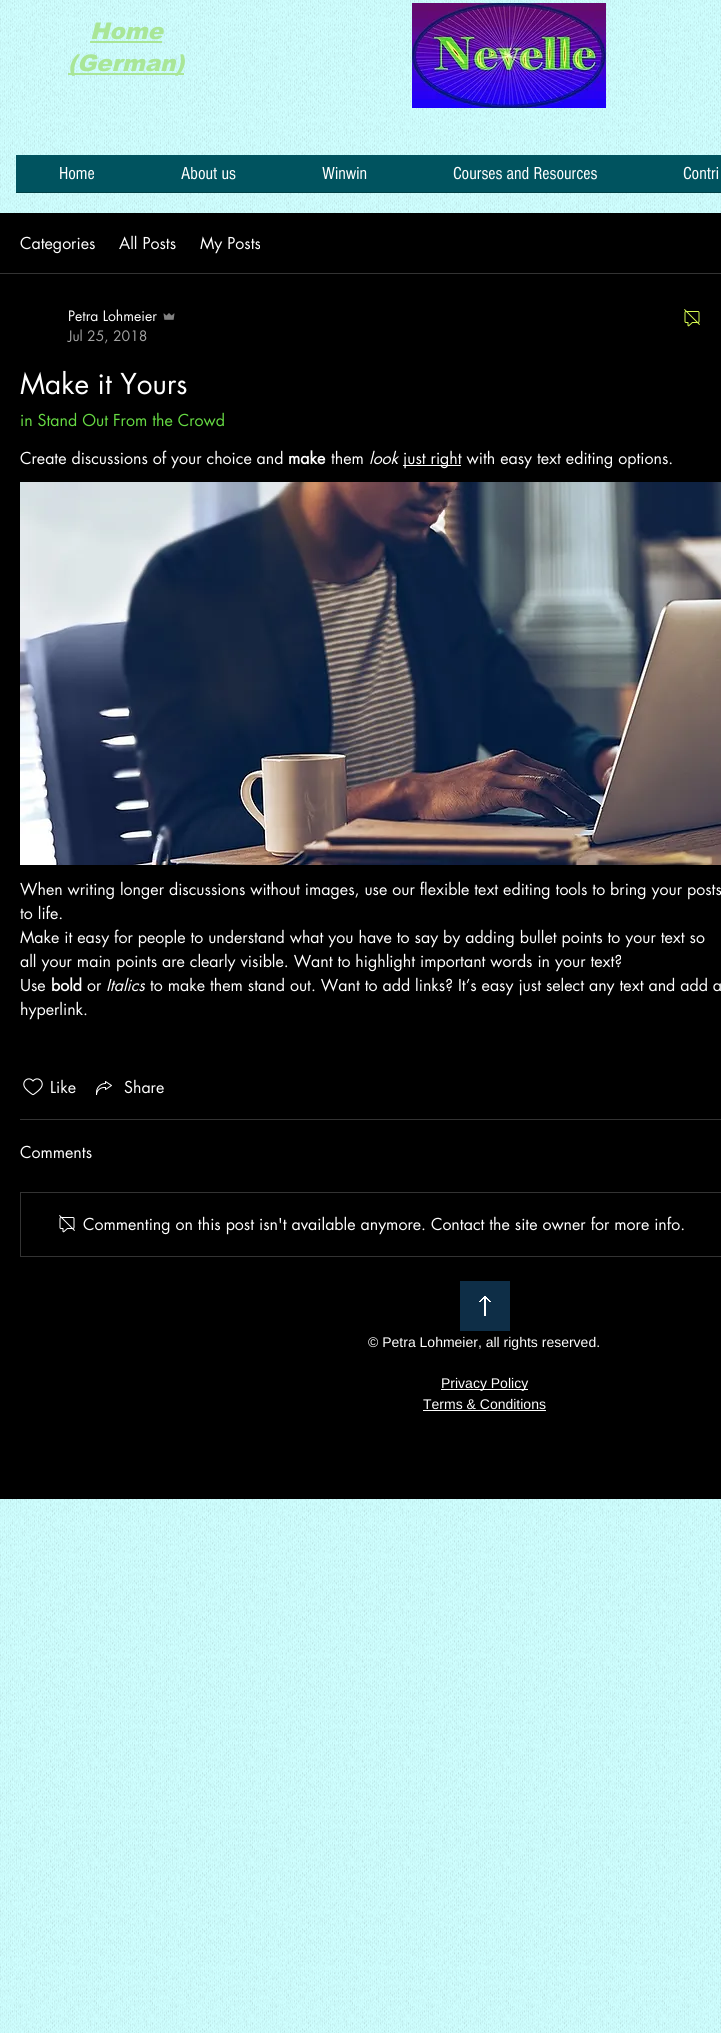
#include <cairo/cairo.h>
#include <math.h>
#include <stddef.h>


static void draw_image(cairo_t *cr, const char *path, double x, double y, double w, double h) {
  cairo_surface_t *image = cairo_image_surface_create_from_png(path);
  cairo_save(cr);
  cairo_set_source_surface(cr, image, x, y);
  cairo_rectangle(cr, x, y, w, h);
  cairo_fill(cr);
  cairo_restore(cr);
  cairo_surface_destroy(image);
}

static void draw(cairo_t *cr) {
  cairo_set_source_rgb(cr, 207 / 255.0, 1, 1);
  cairo_paint(cr);
  draw_image(cr, "images/1.png", 0, 0, 721, 2033);
  cairo_set_source_rgb(cr, 169 / 255.0, 230 / 255.0, 151 / 255.0);
  cairo_rectangle(cr, 90, 41, 72, 2);
  cairo_fill(cr);
  cairo_rectangle(cr, 68, 73, 116, 2);
  cairo_fill(cr);
  draw_image(cr, "images/2.png", 412, 3, 194, 105);
  cairo_set_source_rgb(cr, 0, 83 / 255.0, 95 / 255.0);
  cairo_rectangle(cr, 16, 155, 705, 37);
  cairo_fill(cr);
  cairo_set_source_rgb(cr, 0, 63 / 255.0, 68 / 255.0);
  cairo_rectangle(cr, 16, 192, 705, 1);
  cairo_fill(cr);
  cairo_set_source_rgb(cr, 0, 0, 0);
  cairo_rectangle(cr, 0, 213, 721, 1286);
  cairo_fill(cr);
  cairo_set_source_rgb(cr, 51 / 255.0, 51 / 255.0, 51 / 255.0);
  cairo_rectangle(cr, 0, 273, 721, 1);
  cairo_fill(cr);
  draw_image(cr, "images/3.png", 163, 313, 12, 7);
  draw_image(cr, "images/4.png", 684, 309, 16, 18);
  cairo_set_source_rgb(cr, 1, 1, 1);
  cairo_rectangle(cr, 403, 465, 58, 1);
  cairo_fill(cr);
  draw_image(cr, "images/5.png", 20, 482, 701, 383);
  draw_image(cr, "images/6.png", 23, 1078, 20, 18);
  draw_image(cr, "images/7.png", 96, 1081, 16, 14);
  cairo_set_source_rgb(cr, 51 / 255.0, 51 / 255.0, 51 / 255.0);
  cairo_rectangle(cr, 20, 1119, 701, 1);
  cairo_fill(cr);
  cairo_rectangle(cr, 20.5, 1192.5, 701, 64);
  cairo_set_line_width(cr, 1);
  cairo_stroke(cr);
  draw_image(cr, "images/8.png", 59, 1215, 16, 18);
  draw_image(cr, "images/9.png", 460, 1281, 50, 50);
  cairo_set_source_rgb(cr, 1, 1, 1);
  cairo_rectangle(cr, 441, 1389, 87, 1);
  cairo_fill(cr);
  cairo_rectangle(cr, 423, 1410, 123, 1);
  cairo_fill(cr);
  cairo_select_font_face(cr, "arial Black", CAIRO_FONT_SLANT_ITALIC, CAIRO_FONT_WEIGHT_NORMAL);
  cairo_set_font_size(cr, 23);
  cairo_set_source_rgb(cr, 169 / 255.0, 230 / 255.0, 151 / 255.0);
  cairo_move_to(cr, 90, 39);
  cairo_show_text(cr, "Home");
  cairo_move_to(cr, 68, 71);
  cairo_show_text(cr, "(German)");
  cairo_select_font_face(cr, "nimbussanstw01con", CAIRO_FONT_SLANT_NORMAL, CAIRO_FONT_WEIGHT_NORMAL);
  cairo_set_font_size(cr, 18);
  cairo_set_source_rgb(cr, 1, 1, 1);
  cairo_move_to(cr, 59, 179);
  cairo_show_text(cr, "Home");
  cairo_move_to(cr, 181, 179);
  cairo_show_text(cr, "About us");
  cairo_move_to(cr, 322, 179);
  cairo_show_text(cr, "Winwin");
  cairo_move_to(cr, 453, 179);
  cairo_show_text(cr, "Courses and Resources");
  cairo_move_to(cr, 683, 179);
  cairo_show_text(cr, "Contri");
  cairo_select_font_face(cr, "futura", CAIRO_FONT_SLANT_NORMAL, CAIRO_FONT_WEIGHT_NORMAL);
  cairo_set_font_size(cr, 16);
  cairo_move_to(cr, 20, 249);
  cairo_show_text(cr, "Categories");
  cairo_move_to(cr, 119, 249);
  cairo_show_text(cr, "All Posts");
  cairo_move_to(cr, 200, 249);
  cairo_show_text(cr, "My Posts");
  cairo_set_font_size(cr, 14);
  cairo_move_to(cr, 68, 321);
  cairo_show_text(cr, "Petra Lohmeier");
  cairo_set_source_rgb(cr, 163 / 255.0, 163 / 255.0, 163 / 255.0);
  cairo_move_to(cr, 68, 341);
  cairo_show_text(cr, "Jul 25, 2018");
  cairo_set_font_size(cr, 28);
  cairo_set_source_rgb(cr, 1, 1, 1);
  cairo_move_to(cr, 20, 394);
  cairo_show_text(cr, "Make it Yours");
  cairo_set_font_size(cr, 16);
  cairo_set_source_rgb(cr, 102 / 255.0, 218 / 255.0, 67 / 255.0);
  cairo_move_to(cr, 20, 426);
  cairo_show_text(cr, "in Stand Out From the Crowd");
  cairo_set_source_rgb(cr, 1, 1, 1);
  cairo_move_to(cr, 20, 464);
  cairo_show_text(cr, "Create discussions of your choice and");
  cairo_select_font_face(cr, "futura", CAIRO_FONT_SLANT_NORMAL, CAIRO_FONT_WEIGHT_BOLD);
  cairo_move_to(cr, 288, 464);
  cairo_show_text(cr, "make");
  cairo_select_font_face(cr, "futura", CAIRO_FONT_SLANT_NORMAL, CAIRO_FONT_WEIGHT_NORMAL);
  cairo_move_to(cr, 331, 464);
  cairo_show_text(cr, "them");
  cairo_select_font_face(cr, "futura", CAIRO_FONT_SLANT_ITALIC, CAIRO_FONT_WEIGHT_NORMAL);
  cairo_move_to(cr, 369, 464);
  cairo_show_text(cr, "look");
  cairo_select_font_face(cr, "futura", CAIRO_FONT_SLANT_NORMAL, CAIRO_FONT_WEIGHT_NORMAL);
  cairo_move_to(cr, 403, 464);
  cairo_show_text(cr, "just right with easy text editing options.");
  cairo_move_to(cr, 20, 895);
  cairo_show_text(cr, "When writing longer discussions without images, use our flexible text editing tools to bring your posts");
  cairo_move_to(cr, 20, 919);
  cairo_show_text(cr, "to life.");
  cairo_move_to(cr, 20, 943);
  cairo_show_text(cr, "Make it easy for people to understand what you have to say by adding bullet points to your text so");
  cairo_move_to(cr, 20, 967);
  cairo_show_text(cr, "all your main points are clearly visible. Want to highlight important words in your text?");
  cairo_move_to(cr, 20, 991);
  cairo_show_text(cr, "Use");
  cairo_select_font_face(cr, "futura", CAIRO_FONT_SLANT_NORMAL, CAIRO_FONT_WEIGHT_BOLD);
  cairo_move_to(cr, 51, 991);
  cairo_show_text(cr, "bold");
  cairo_select_font_face(cr, "futura", CAIRO_FONT_SLANT_NORMAL, CAIRO_FONT_WEIGHT_NORMAL);
  cairo_move_to(cr, 87, 991);
  cairo_show_text(cr, "or");
  cairo_select_font_face(cr, "futura", CAIRO_FONT_SLANT_ITALIC, CAIRO_FONT_WEIGHT_NORMAL);
  cairo_move_to(cr, 106, 991);
  cairo_show_text(cr, "Italics");
  cairo_select_font_face(cr, "futura", CAIRO_FONT_SLANT_NORMAL, CAIRO_FONT_WEIGHT_NORMAL);
  cairo_move_to(cr, 150, 991);
  cairo_show_text(cr, "to make them stand out. Want to add links? It’s easy just select any text and add a");
  cairo_move_to(cr, 20, 1015);
  cairo_show_text(cr, "hyperlink.");
  cairo_move_to(cr, 50, 1093);
  cairo_show_text(cr, "Like");
  cairo_move_to(cr, 124, 1093);
  cairo_show_text(cr, "Share");
  cairo_move_to(cr, 20, 1158);
  cairo_show_text(cr, "Comments");
  cairo_move_to(cr, 83, 1230);
  cairo_show_text(cr, "Commenting on this post isn't available anymore. Contact the site owner for more info.");
  cairo_select_font_face(cr, "Liberation Sans", CAIRO_FONT_SLANT_NORMAL, CAIRO_FONT_WEIGHT_NORMAL);
  cairo_set_font_size(cr, 14);
  cairo_move_to(cr, 368, 1347);
  cairo_show_text(cr, "© Petra Lohmeier, all rights reserved.");
  cairo_move_to(cr, 441, 1388);
  cairo_show_text(cr, "Privacy Policy");
  cairo_move_to(cr, 423, 1409);
  cairo_show_text(cr, "Terms & Conditions");
}

int main(void) {
  cairo_surface_t *surface = cairo_image_surface_create(CAIRO_FORMAT_RGB24, 721, 2033);
  cairo_t *cr = cairo_create(surface);
  cairo_font_options_t *options = cairo_font_options_create();
  cairo_font_options_set_hint_metrics(options, CAIRO_HINT_METRICS_OFF);
  cairo_font_options_set_hint_style(options, CAIRO_HINT_STYLE_NONE);
  cairo_set_font_options(cr, options);
  cairo_set_miter_limit(cr, 4);
  draw(cr);
  cairo_surface_write_to_png(surface, "out.png");
  cairo_font_options_destroy(options);
  cairo_destroy(cr);
  cairo_surface_destroy(surface);
  return 0;
}
